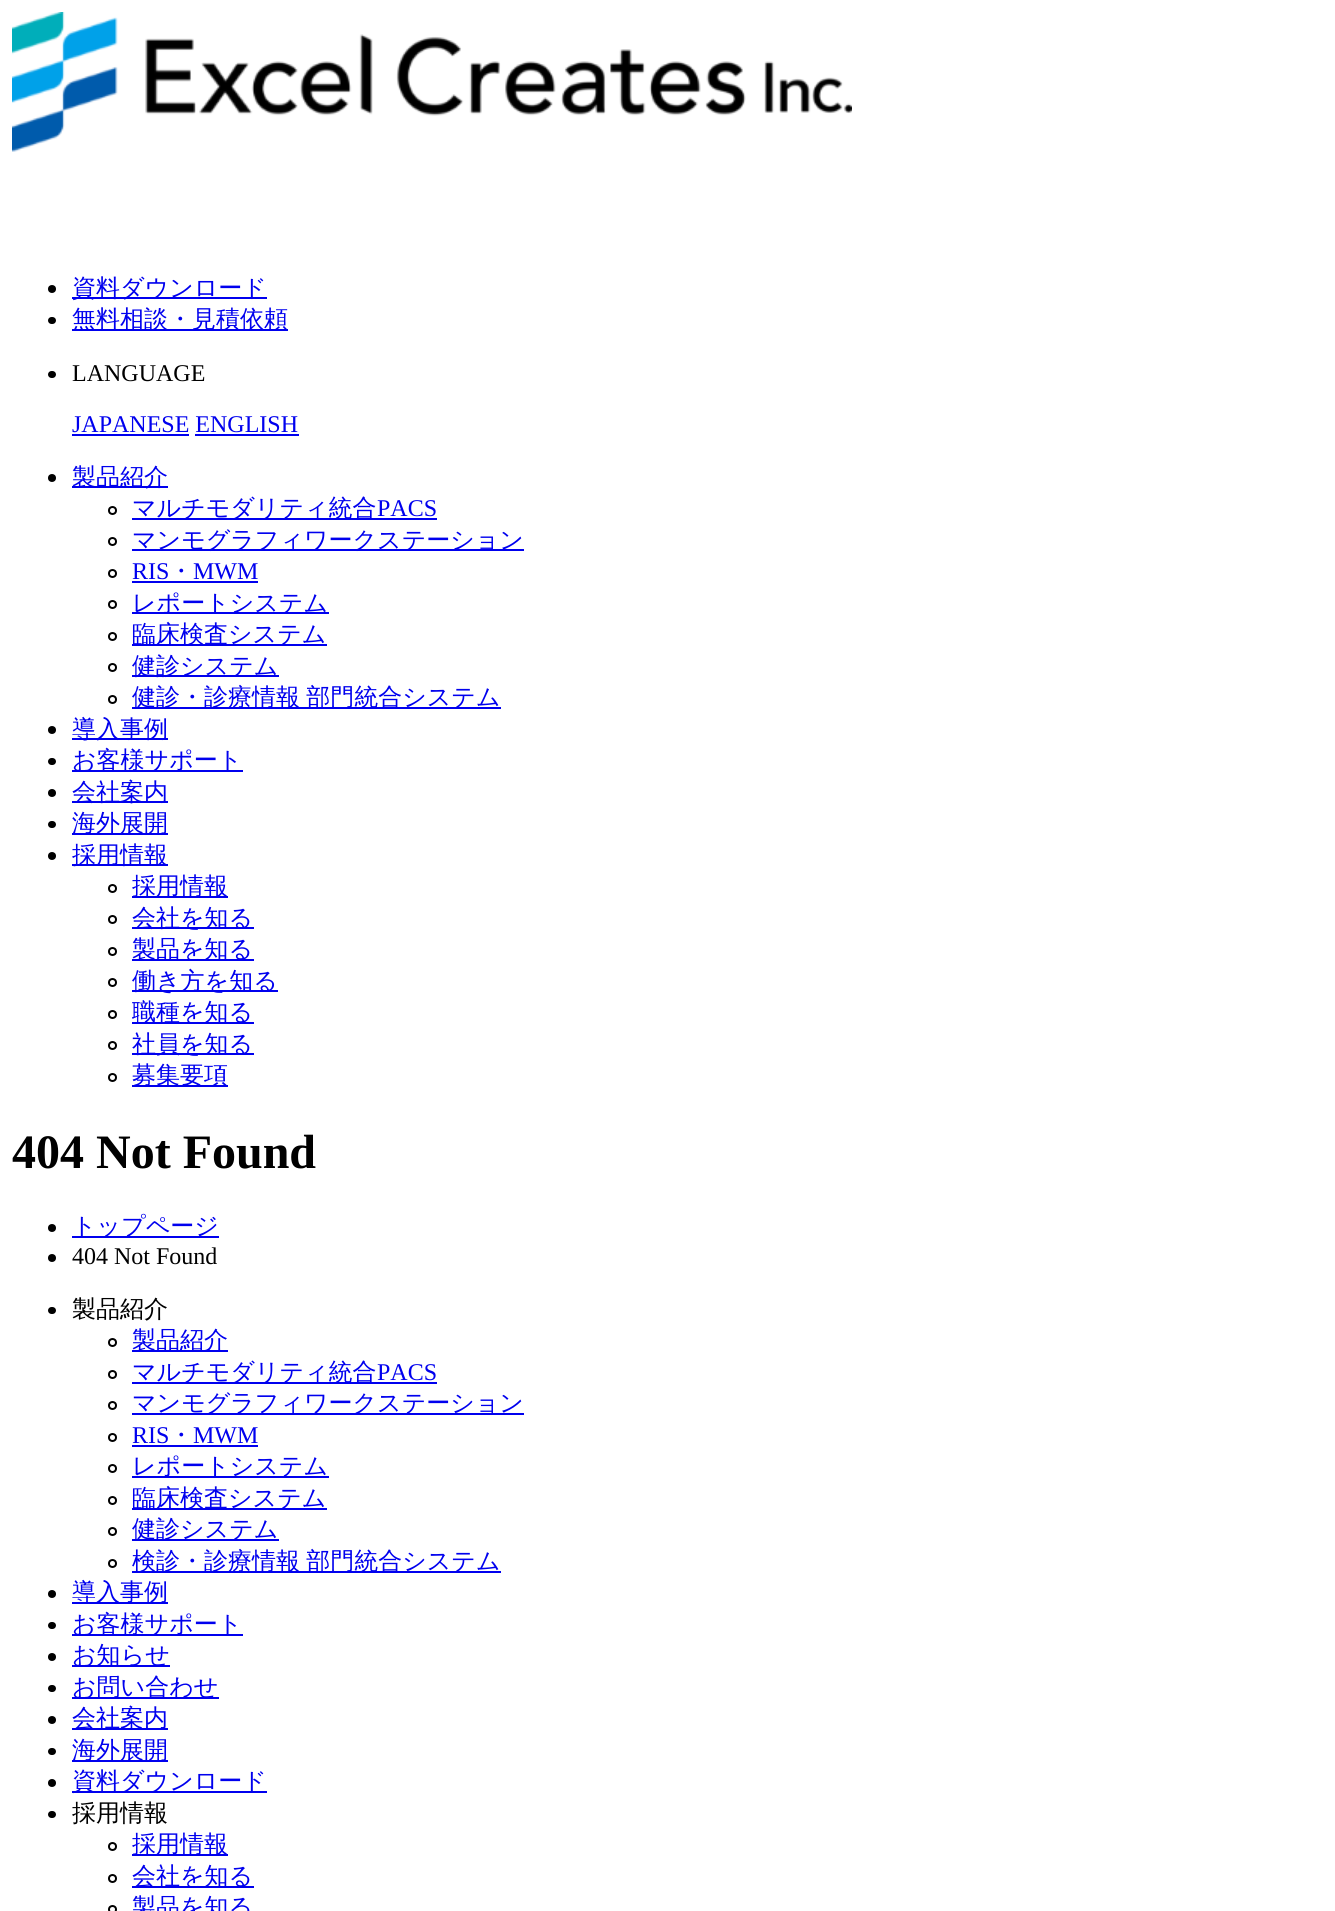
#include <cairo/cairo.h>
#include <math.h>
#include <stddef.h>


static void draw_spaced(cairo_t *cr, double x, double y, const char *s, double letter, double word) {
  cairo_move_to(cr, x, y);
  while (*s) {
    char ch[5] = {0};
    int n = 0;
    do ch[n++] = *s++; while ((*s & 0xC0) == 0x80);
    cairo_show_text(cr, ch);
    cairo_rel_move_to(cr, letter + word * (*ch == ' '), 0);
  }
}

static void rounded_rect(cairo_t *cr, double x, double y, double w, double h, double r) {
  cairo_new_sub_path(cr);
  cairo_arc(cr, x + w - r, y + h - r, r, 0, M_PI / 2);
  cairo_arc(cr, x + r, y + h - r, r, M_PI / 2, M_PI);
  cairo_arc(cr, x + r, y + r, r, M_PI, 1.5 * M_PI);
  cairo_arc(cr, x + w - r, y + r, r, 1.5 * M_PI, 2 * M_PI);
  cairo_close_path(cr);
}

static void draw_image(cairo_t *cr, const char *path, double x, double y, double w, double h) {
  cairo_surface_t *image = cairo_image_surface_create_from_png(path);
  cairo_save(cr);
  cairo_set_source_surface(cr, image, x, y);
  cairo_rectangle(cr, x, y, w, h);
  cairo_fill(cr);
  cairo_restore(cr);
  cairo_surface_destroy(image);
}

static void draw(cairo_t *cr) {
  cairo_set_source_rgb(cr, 1, 1, 1);
  cairo_paint(cr);
  draw_image(cr, "images/1.png", 12, 12, 840, 140);
  cairo_set_source_rgb(cr, 0, 0, 0);
  cairo_arc(cr, 52, 289, 4, 0, 2 * M_PI);
  cairo_fill(cr);
  cairo_set_source_rgb(cr, 0, 0, 238 / 255.0);
  cairo_rectangle(cr, 72, 297, 195, 2);
  cairo_fill(cr);
  cairo_set_source_rgb(cr, 0, 0, 0);
  rounded_rect(cr, 48, 317, 8, 7, 3.5);
  cairo_fill(cr);
  cairo_set_source_rgb(cr, 0, 0, 238 / 255.0);
  cairo_rectangle(cr, 72, 329, 216, 2);
  cairo_fill(cr);
  cairo_set_source_rgb(cr, 0, 0, 0);
  rounded_rect(cr, 48, 371, 8, 7, 3.5);
  cairo_fill(cr);
  cairo_set_source_rgb(cr, 0, 0, 238 / 255.0);
  cairo_rectangle(cr, 72, 434, 117, 2);
  cairo_fill(cr);
  cairo_rectangle(cr, 195, 434, 104, 2);
  cairo_fill(cr);
  cairo_set_source_rgb(cr, 0, 0, 0);
  cairo_arc(cr, 52, 478, 4, 0, 2 * M_PI);
  cairo_fill(cr);
  cairo_set_source_rgb(cr, 0, 0, 238 / 255.0);
  cairo_rectangle(cr, 72, 486, 96, 2);
  cairo_fill(cr);
  cairo_arc(cr, 112.5, 510.5, 3.5, 0, 2 * M_PI);
  cairo_set_source_rgb(cr, 0, 0, 0);
  cairo_stroke(cr);
  cairo_set_source_rgb(cr, 0, 0, 238 / 255.0);
  cairo_rectangle(cr, 132, 518, 305, 2);
  cairo_fill(cr);
  cairo_arc(cr, 112.5, 541.5, 3.5, 0, 2 * M_PI);
  cairo_set_source_rgb(cr, 0, 0, 0);
  cairo_stroke(cr);
  cairo_set_source_rgb(cr, 0, 0, 238 / 255.0);
  cairo_rectangle(cr, 132, 549, 392, 2);
  cairo_fill(cr);
  cairo_arc(cr, 112.5, 573.5, 3.5, 0, 2 * M_PI);
  cairo_set_source_rgb(cr, 0, 0, 0);
  cairo_stroke(cr);
  cairo_set_source_rgb(cr, 0, 0, 238 / 255.0);
  cairo_rectangle(cr, 132, 581, 126, 2);
  cairo_fill(cr);
  cairo_arc(cr, 112.5, 604.5, 3.5, 0, 2 * M_PI);
  cairo_set_source_rgb(cr, 0, 0, 0);
  cairo_stroke(cr);
  cairo_set_source_rgb(cr, 0, 0, 238 / 255.0);
  cairo_rectangle(cr, 132, 612, 197, 2);
  cairo_fill(cr);
  cairo_arc(cr, 112.5, 636.5, 3.5, 0, 2 * M_PI);
  cairo_set_source_rgb(cr, 0, 0, 0);
  cairo_stroke(cr);
  cairo_set_source_rgb(cr, 0, 0, 238 / 255.0);
  cairo_rectangle(cr, 132, 644, 195, 2);
  cairo_fill(cr);
  cairo_arc(cr, 112.5, 667.5, 3.5, 0, 2 * M_PI);
  cairo_set_source_rgb(cr, 0, 0, 0);
  cairo_stroke(cr);
  cairo_set_source_rgb(cr, 0, 0, 238 / 255.0);
  cairo_rectangle(cr, 132, 675, 147, 2);
  cairo_fill(cr);
  cairo_arc(cr, 112.5, 699.5, 3.5, 0, 2 * M_PI);
  cairo_set_source_rgb(cr, 0, 0, 0);
  cairo_stroke(cr);
  cairo_set_source_rgb(cr, 0, 0, 238 / 255.0);
  cairo_rectangle(cr, 132, 707, 369, 2);
  cairo_fill(cr);
  cairo_set_source_rgb(cr, 0, 0, 0);
  cairo_arc(cr, 52, 730, 4, 0, 2 * M_PI);
  cairo_fill(cr);
  cairo_set_source_rgb(cr, 0, 0, 238 / 255.0);
  cairo_rectangle(cr, 72, 738, 96, 2);
  cairo_fill(cr);
  cairo_set_source_rgb(cr, 0, 0, 0);
  rounded_rect(cr, 48, 758, 8, 7, 3.5);
  cairo_fill(cr);
  cairo_set_source_rgb(cr, 0, 0, 238 / 255.0);
  cairo_rectangle(cr, 72, 770, 171, 2);
  cairo_fill(cr);
  cairo_set_source_rgb(cr, 0, 0, 0);
  cairo_arc(cr, 52, 793, 4, 0, 2 * M_PI);
  cairo_fill(cr);
  cairo_set_source_rgb(cr, 0, 0, 238 / 255.0);
  cairo_rectangle(cr, 72, 801, 96, 2);
  cairo_fill(cr);
  cairo_set_source_rgb(cr, 0, 0, 0);
  rounded_rect(cr, 48, 821, 8, 7, 3.5);
  cairo_fill(cr);
  cairo_set_source_rgb(cr, 0, 0, 238 / 255.0);
  cairo_rectangle(cr, 72, 833, 96, 2);
  cairo_fill(cr);
  cairo_set_source_rgb(cr, 0, 0, 0);
  cairo_arc(cr, 52, 856, 4, 0, 2 * M_PI);
  cairo_fill(cr);
  cairo_set_source_rgb(cr, 0, 0, 238 / 255.0);
  cairo_rectangle(cr, 72, 864, 96, 2);
  cairo_fill(cr);
  cairo_arc(cr, 112.5, 888.5, 3.5, 0, 2 * M_PI);
  cairo_set_source_rgb(cr, 0, 0, 0);
  cairo_stroke(cr);
  cairo_set_source_rgb(cr, 0, 0, 238 / 255.0);
  cairo_rectangle(cr, 132, 896, 96, 2);
  cairo_fill(cr);
  cairo_arc(cr, 112.5, 919.5, 3.5, 0, 2 * M_PI);
  cairo_set_source_rgb(cr, 0, 0, 0);
  cairo_stroke(cr);
  cairo_set_source_rgb(cr, 0, 0, 238 / 255.0);
  cairo_rectangle(cr, 132, 927, 122, 2);
  cairo_fill(cr);
  cairo_arc(cr, 112.5, 951.5, 3.5, 0, 2 * M_PI);
  cairo_set_source_rgb(cr, 0, 0, 0);
  cairo_stroke(cr);
  cairo_set_source_rgb(cr, 0, 0, 238 / 255.0);
  cairo_rectangle(cr, 132, 959, 122, 2);
  cairo_fill(cr);
  cairo_arc(cr, 112.5, 982.5, 3.5, 0, 2 * M_PI);
  cairo_set_source_rgb(cr, 0, 0, 0);
  cairo_stroke(cr);
  cairo_set_source_rgb(cr, 0, 0, 238 / 255.0);
  cairo_rectangle(cr, 132, 990, 146, 2);
  cairo_fill(cr);
  cairo_arc(cr, 112.5, 1014.5, 3.5, 0, 2 * M_PI);
  cairo_set_source_rgb(cr, 0, 0, 0);
  cairo_stroke(cr);
  cairo_set_source_rgb(cr, 0, 0, 238 / 255.0);
  cairo_rectangle(cr, 132, 1022, 122, 2);
  cairo_fill(cr);
  cairo_arc(cr, 112.5, 1045.5, 3.5, 0, 2 * M_PI);
  cairo_set_source_rgb(cr, 0, 0, 0);
  cairo_stroke(cr);
  cairo_set_source_rgb(cr, 0, 0, 238 / 255.0);
  cairo_rectangle(cr, 132, 1053, 122, 2);
  cairo_fill(cr);
  cairo_arc(cr, 112.5, 1077.5, 3.5, 0, 2 * M_PI);
  cairo_set_source_rgb(cr, 0, 0, 0);
  cairo_stroke(cr);
  cairo_set_source_rgb(cr, 0, 0, 238 / 255.0);
  cairo_rectangle(cr, 132, 1085, 96, 2);
  cairo_fill(cr);
  cairo_set_source_rgb(cr, 0, 0, 0);
  cairo_arc(cr, 52, 1228, 4, 0, 2 * M_PI);
  cairo_fill(cr);
  cairo_set_source_rgb(cr, 0, 0, 238 / 255.0);
  cairo_rectangle(cr, 72, 1236, 147, 2);
  cairo_fill(cr);
  cairo_set_source_rgb(cr, 0, 0, 0);
  cairo_arc(cr, 52, 1258, 4, 0, 2 * M_PI);
  cairo_fill(cr);
  rounded_rect(cr, 48, 1307, 8, 7, 3.5);
  cairo_fill(cr);
  cairo_arc(cr, 112.5, 1342.5, 3.5, 0, 2 * M_PI);
  cairo_stroke(cr);
  cairo_set_source_rgb(cr, 0, 0, 238 / 255.0);
  cairo_rectangle(cr, 132, 1350, 96, 2);
  cairo_fill(cr);
  cairo_arc(cr, 112.5, 1374.5, 3.5, 0, 2 * M_PI);
  cairo_set_source_rgb(cr, 0, 0, 0);
  cairo_stroke(cr);
  cairo_set_source_rgb(cr, 0, 0, 238 / 255.0);
  cairo_rectangle(cr, 132, 1382, 305, 2);
  cairo_fill(cr);
  cairo_arc(cr, 112.5, 1405.5, 3.5, 0, 2 * M_PI);
  cairo_set_source_rgb(cr, 0, 0, 0);
  cairo_stroke(cr);
  cairo_set_source_rgb(cr, 0, 0, 238 / 255.0);
  cairo_rectangle(cr, 132, 1413, 392, 2);
  cairo_fill(cr);
  cairo_arc(cr, 112.5, 1437.5, 3.5, 0, 2 * M_PI);
  cairo_set_source_rgb(cr, 0, 0, 0);
  cairo_stroke(cr);
  cairo_set_source_rgb(cr, 0, 0, 238 / 255.0);
  cairo_rectangle(cr, 132, 1445, 126, 2);
  cairo_fill(cr);
  cairo_arc(cr, 112.5, 1468.5, 3.5, 0, 2 * M_PI);
  cairo_set_source_rgb(cr, 0, 0, 0);
  cairo_stroke(cr);
  cairo_set_source_rgb(cr, 0, 0, 238 / 255.0);
  cairo_rectangle(cr, 132, 1476, 197, 2);
  cairo_fill(cr);
  cairo_arc(cr, 112.5, 1500.5, 3.5, 0, 2 * M_PI);
  cairo_set_source_rgb(cr, 0, 0, 0);
  cairo_stroke(cr);
  cairo_set_source_rgb(cr, 0, 0, 238 / 255.0);
  cairo_rectangle(cr, 132, 1508, 195, 2);
  cairo_fill(cr);
  cairo_arc(cr, 112.5, 1531.5, 3.5, 0, 2 * M_PI);
  cairo_set_source_rgb(cr, 0, 0, 0);
  cairo_stroke(cr);
  cairo_set_source_rgb(cr, 0, 0, 238 / 255.0);
  cairo_rectangle(cr, 132, 1539, 147, 2);
  cairo_fill(cr);
  cairo_arc(cr, 112.5, 1563.5, 3.5, 0, 2 * M_PI);
  cairo_set_source_rgb(cr, 0, 0, 0);
  cairo_stroke(cr);
  cairo_set_source_rgb(cr, 0, 0, 238 / 255.0);
  cairo_rectangle(cr, 132, 1571, 369, 2);
  cairo_fill(cr);
  cairo_set_source_rgb(cr, 0, 0, 0);
  cairo_arc(cr, 52, 1594, 4, 0, 2 * M_PI);
  cairo_fill(cr);
  cairo_set_source_rgb(cr, 0, 0, 238 / 255.0);
  cairo_rectangle(cr, 72, 1602, 96, 2);
  cairo_fill(cr);
  cairo_set_source_rgb(cr, 0, 0, 0);
  rounded_rect(cr, 48, 1622, 8, 7, 3.5);
  cairo_fill(cr);
  cairo_set_source_rgb(cr, 0, 0, 238 / 255.0);
  cairo_rectangle(cr, 72, 1634, 171, 2);
  cairo_fill(cr);
  cairo_set_source_rgb(cr, 0, 0, 0);
  cairo_arc(cr, 52, 1657, 4, 0, 2 * M_PI);
  cairo_fill(cr);
  cairo_set_source_rgb(cr, 0, 0, 238 / 255.0);
  cairo_rectangle(cr, 72, 1665, 98, 2);
  cairo_fill(cr);
  cairo_set_source_rgb(cr, 0, 0, 0);
  rounded_rect(cr, 48, 1685, 8, 7, 3.5);
  cairo_fill(cr);
  cairo_set_source_rgb(cr, 0, 0, 238 / 255.0);
  cairo_rectangle(cr, 72, 1697, 147, 2);
  cairo_fill(cr);
  cairo_set_source_rgb(cr, 0, 0, 0);
  cairo_arc(cr, 52, 1720, 4, 0, 2 * M_PI);
  cairo_fill(cr);
  cairo_set_source_rgb(cr, 0, 0, 238 / 255.0);
  cairo_rectangle(cr, 72, 1728, 96, 2);
  cairo_fill(cr);
  cairo_set_source_rgb(cr, 0, 0, 0);
  rounded_rect(cr, 48, 1748, 8, 7, 3.5);
  cairo_fill(cr);
  cairo_set_source_rgb(cr, 0, 0, 238 / 255.0);
  cairo_rectangle(cr, 72, 1760, 96, 2);
  cairo_fill(cr);
  cairo_set_source_rgb(cr, 0, 0, 0);
  cairo_arc(cr, 52, 1783, 4, 0, 2 * M_PI);
  cairo_fill(cr);
  cairo_set_source_rgb(cr, 0, 0, 238 / 255.0);
  cairo_rectangle(cr, 72, 1791, 195, 2);
  cairo_fill(cr);
  cairo_set_source_rgb(cr, 0, 0, 0);
  rounded_rect(cr, 48, 1811, 8, 7, 3.5);
  cairo_fill(cr);
  cairo_arc(cr, 112.5, 1846.5, 3.5, 0, 2 * M_PI);
  cairo_stroke(cr);
  cairo_set_source_rgb(cr, 0, 0, 238 / 255.0);
  cairo_rectangle(cr, 132, 1854, 96, 2);
  cairo_fill(cr);
  cairo_arc(cr, 112.5, 1878.5, 3.5, 0, 2 * M_PI);
  cairo_set_source_rgb(cr, 0, 0, 0);
  cairo_stroke(cr);
  cairo_set_source_rgb(cr, 0, 0, 238 / 255.0);
  cairo_rectangle(cr, 132, 1886, 122, 2);
  cairo_fill(cr);
  cairo_arc(cr, 112.5, 1909.5, 3.5, 0, 2 * M_PI);
  cairo_set_source_rgb(cr, 0, 0, 0);
  cairo_stroke(cr);
  cairo_select_font_face(cr, "WenQuanYi Zen Hei Medium", CAIRO_FONT_SLANT_NORMAL, CAIRO_FONT_WEIGHT_NORMAL);
  cairo_set_font_size(cr, 24);
  cairo_set_source_rgb(cr, 0, 0, 238 / 255.0);
  cairo_move_to(cr, 72, 296);
  cairo_show_text(cr, "資料ダウンロード");
  cairo_move_to(cr, 72, 327);
  cairo_show_text(cr, "無料相談・見積依頼");
  cairo_select_font_face(cr, "Liberation Serif", CAIRO_FONT_SLANT_NORMAL, CAIRO_FONT_WEIGHT_NORMAL);
  cairo_set_source_rgb(cr, 0, 0, 0);
  cairo_move_to(cr, 72, 381);
  cairo_show_text(cr, "LANGUAGE");
  cairo_set_source_rgb(cr, 0, 0, 238 / 255.0);
  cairo_move_to(cr, 72, 432);
  cairo_show_text(cr, "JAPANESE ENGLISH");
  cairo_select_font_face(cr, "WenQuanYi Zen Hei Medium", CAIRO_FONT_SLANT_NORMAL, CAIRO_FONT_WEIGHT_NORMAL);
  cairo_move_to(cr, 72, 485);
  cairo_show_text(cr, "製品紹介");
  cairo_move_to(cr, 132, 516);
  cairo_show_text(cr, "マルチモダリティ統合");
  cairo_select_font_face(cr, "Liberation Serif", CAIRO_FONT_SLANT_NORMAL, CAIRO_FONT_WEIGHT_NORMAL);
  cairo_move_to(cr, 377, 516);
  cairo_show_text(cr, "PACS");
  cairo_select_font_face(cr, "WenQuanYi Zen Hei Medium", CAIRO_FONT_SLANT_NORMAL, CAIRO_FONT_WEIGHT_NORMAL);
  cairo_move_to(cr, 132, 548);
  cairo_show_text(cr, "マンモグラフィワークステーション");
  cairo_select_font_face(cr, "Liberation Serif", CAIRO_FONT_SLANT_NORMAL, CAIRO_FONT_WEIGHT_NORMAL);
  cairo_move_to(cr, 132, 579);
  cairo_show_text(cr, "RIS");
  cairo_select_font_face(cr, "WenQuanYi Zen Hei Medium", CAIRO_FONT_SLANT_NORMAL, CAIRO_FONT_WEIGHT_NORMAL);
  cairo_move_to(cr, 169, 579);
  cairo_show_text(cr, "・");
  cairo_select_font_face(cr, "Liberation Serif", CAIRO_FONT_SLANT_NORMAL, CAIRO_FONT_WEIGHT_NORMAL);
  cairo_move_to(cr, 193, 579);
  cairo_show_text(cr, "MWM");
  cairo_select_font_face(cr, "WenQuanYi Zen Hei Medium", CAIRO_FONT_SLANT_NORMAL, CAIRO_FONT_WEIGHT_NORMAL);
  cairo_move_to(cr, 132, 611);
  cairo_show_text(cr, "レポートシステム");
  cairo_move_to(cr, 132, 642);
  cairo_show_text(cr, "臨床検査システム");
  cairo_move_to(cr, 132, 674);
  cairo_show_text(cr, "健診システム");
  draw_spaced(cr, 132, 705, "健診・診療情報 部門統合システム", 0, -1);
  cairo_move_to(cr, 72, 737);
  cairo_show_text(cr, "導入事例");
  cairo_move_to(cr, 72, 768);
  cairo_show_text(cr, "お客様サポート");
  cairo_move_to(cr, 72, 800);
  cairo_show_text(cr, "会社案内");
  cairo_move_to(cr, 72, 831);
  cairo_show_text(cr, "海外展開");
  cairo_move_to(cr, 72, 863);
  cairo_show_text(cr, "採用情報");
  cairo_move_to(cr, 132, 894);
  cairo_show_text(cr, "採用情報");
  cairo_move_to(cr, 132, 926);
  cairo_show_text(cr, "会社を知る");
  cairo_move_to(cr, 132, 957);
  cairo_show_text(cr, "製品を知る");
  cairo_move_to(cr, 132, 989);
  cairo_show_text(cr, "働き方を知る");
  cairo_move_to(cr, 132, 1020);
  cairo_show_text(cr, "職種を知る");
  cairo_move_to(cr, 132, 1052);
  cairo_show_text(cr, "社員を知る");
  cairo_move_to(cr, 132, 1083);
  cairo_show_text(cr, "募集要項");
  cairo_select_font_face(cr, "Liberation Serif", CAIRO_FONT_SLANT_NORMAL, CAIRO_FONT_WEIGHT_BOLD);
  cairo_set_font_size(cr, 48);
  cairo_set_source_rgb(cr, 0, 0, 0);
  cairo_move_to(cr, 12, 1168);
  cairo_show_text(cr, "404 Not Found");
  cairo_select_font_face(cr, "WenQuanYi Zen Hei Medium", CAIRO_FONT_SLANT_NORMAL, CAIRO_FONT_WEIGHT_NORMAL);
  cairo_set_font_size(cr, 24);
  cairo_set_source_rgb(cr, 0, 0, 238 / 255.0);
  cairo_move_to(cr, 72, 1234);
  cairo_show_text(cr, "トップページ");
  cairo_select_font_face(cr, "Liberation Serif", CAIRO_FONT_SLANT_NORMAL, CAIRO_FONT_WEIGHT_NORMAL);
  cairo_set_source_rgb(cr, 0, 0, 0);
  cairo_move_to(cr, 72, 1264);
  cairo_show_text(cr, "404 Not Found");
  cairo_select_font_face(cr, "WenQuanYi Zen Hei Medium", CAIRO_FONT_SLANT_NORMAL, CAIRO_FONT_WEIGHT_NORMAL);
  cairo_move_to(cr, 72, 1317);
  cairo_show_text(cr, "製品紹介");
  cairo_set_source_rgb(cr, 0, 0, 238 / 255.0);
  cairo_move_to(cr, 132, 1348);
  cairo_show_text(cr, "製品紹介");
  cairo_move_to(cr, 132, 1380);
  cairo_show_text(cr, "マルチモダリティ統合");
  cairo_select_font_face(cr, "Liberation Serif", CAIRO_FONT_SLANT_NORMAL, CAIRO_FONT_WEIGHT_NORMAL);
  cairo_move_to(cr, 377, 1380);
  cairo_show_text(cr, "PACS");
  cairo_select_font_face(cr, "WenQuanYi Zen Hei Medium", CAIRO_FONT_SLANT_NORMAL, CAIRO_FONT_WEIGHT_NORMAL);
  cairo_move_to(cr, 132, 1411);
  cairo_show_text(cr, "マンモグラフィワークステーション");
  cairo_select_font_face(cr, "Liberation Serif", CAIRO_FONT_SLANT_NORMAL, CAIRO_FONT_WEIGHT_NORMAL);
  cairo_move_to(cr, 132, 1443);
  cairo_show_text(cr, "RIS");
  cairo_select_font_face(cr, "WenQuanYi Zen Hei Medium", CAIRO_FONT_SLANT_NORMAL, CAIRO_FONT_WEIGHT_NORMAL);
  cairo_move_to(cr, 169, 1443);
  cairo_show_text(cr, "・");
  cairo_select_font_face(cr, "Liberation Serif", CAIRO_FONT_SLANT_NORMAL, CAIRO_FONT_WEIGHT_NORMAL);
  cairo_move_to(cr, 193, 1443);
  cairo_show_text(cr, "MWM");
  cairo_select_font_face(cr, "WenQuanYi Zen Hei Medium", CAIRO_FONT_SLANT_NORMAL, CAIRO_FONT_WEIGHT_NORMAL);
  cairo_move_to(cr, 132, 1474);
  cairo_show_text(cr, "レポートシステム");
  cairo_move_to(cr, 132, 1506);
  cairo_show_text(cr, "臨床検査システム");
  cairo_move_to(cr, 132, 1537);
  cairo_show_text(cr, "健診システム");
  draw_spaced(cr, 132, 1569, "検診・診療情報 部門統合システム", 0, -1);
  cairo_move_to(cr, 72, 1600);
  cairo_show_text(cr, "導入事例");
  cairo_move_to(cr, 72, 1632);
  cairo_show_text(cr, "お客様サポート");
  cairo_move_to(cr, 72, 1663);
  cairo_show_text(cr, "お知らせ");
  cairo_move_to(cr, 72, 1695);
  cairo_show_text(cr, "お問い合わせ");
  cairo_move_to(cr, 72, 1726);
  cairo_show_text(cr, "会社案内");
  cairo_move_to(cr, 72, 1758);
  cairo_show_text(cr, "海外展開");
  cairo_move_to(cr, 72, 1789);
  cairo_show_text(cr, "資料ダウンロード");
  cairo_set_source_rgb(cr, 0, 0, 0);
  cairo_move_to(cr, 72, 1821);
  cairo_show_text(cr, "採用情報");
  cairo_set_source_rgb(cr, 0, 0, 238 / 255.0);
  cairo_move_to(cr, 132, 1852);
  cairo_show_text(cr, "採用情報");
  cairo_move_to(cr, 132, 1884);
  cairo_show_text(cr, "会社を知る");
  cairo_move_to(cr, 132, 1915);
  cairo_show_text(cr, "製品を知る");
}

int main(void) {
  cairo_surface_t *surface = cairo_image_surface_create(CAIRO_FORMAT_RGB24, 1335, 1911);
  cairo_t *cr = cairo_create(surface);
  cairo_font_options_t *options = cairo_font_options_create();
  cairo_font_options_set_hint_metrics(options, CAIRO_HINT_METRICS_OFF);
  cairo_font_options_set_hint_style(options, CAIRO_HINT_STYLE_NONE);
  cairo_set_font_options(cr, options);
  cairo_set_miter_limit(cr, 4);
  draw(cr);
  cairo_surface_write_to_png(surface, "out.png");
  cairo_font_options_destroy(options);
  cairo_destroy(cr);
  cairo_surface_destroy(surface);
  return 0;
}
